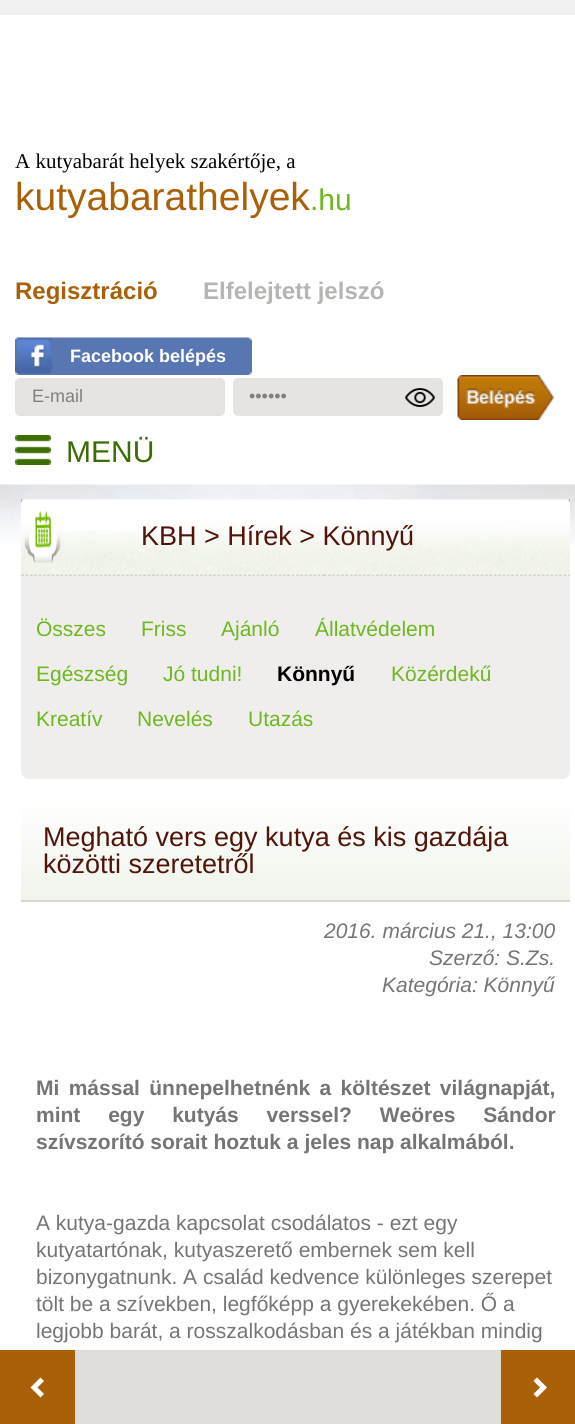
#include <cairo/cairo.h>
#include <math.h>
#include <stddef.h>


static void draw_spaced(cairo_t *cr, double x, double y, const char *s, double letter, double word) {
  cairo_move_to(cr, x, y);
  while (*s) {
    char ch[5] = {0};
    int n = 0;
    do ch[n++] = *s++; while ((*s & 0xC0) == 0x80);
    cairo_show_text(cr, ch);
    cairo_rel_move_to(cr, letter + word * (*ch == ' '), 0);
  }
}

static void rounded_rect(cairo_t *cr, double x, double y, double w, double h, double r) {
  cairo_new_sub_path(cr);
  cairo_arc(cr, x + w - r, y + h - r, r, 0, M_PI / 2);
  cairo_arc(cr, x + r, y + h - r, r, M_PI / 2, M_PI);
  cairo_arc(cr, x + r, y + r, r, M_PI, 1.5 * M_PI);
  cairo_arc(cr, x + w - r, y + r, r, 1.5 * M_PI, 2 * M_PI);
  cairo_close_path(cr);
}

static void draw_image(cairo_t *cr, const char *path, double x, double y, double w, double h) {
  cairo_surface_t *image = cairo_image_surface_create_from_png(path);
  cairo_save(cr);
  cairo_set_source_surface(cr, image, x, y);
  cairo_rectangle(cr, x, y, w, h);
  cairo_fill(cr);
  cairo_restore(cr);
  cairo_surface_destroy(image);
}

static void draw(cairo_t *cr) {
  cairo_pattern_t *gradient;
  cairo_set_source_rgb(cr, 1, 1, 1);
  cairo_paint(cr);
  cairo_set_source_rgb(cr, 241 / 255.0, 241 / 255.0, 241 / 255.0);
  cairo_rectangle(cr, 0, 0, 575, 15);
  cairo_fill(cr);
  draw_image(cr, "images/1.png", 15, 337, 237, 38);
  cairo_set_source_rgb(cr, 229 / 255.0, 228 / 255.0, 225 / 255.0);
  rounded_rect(cr, 16, 379, 208, 36, 4);
  cairo_fill_preserve(cr);
  cairo_stroke(cr);
  rounded_rect(cr, 234, 379, 208, 36, 4);
  cairo_fill_preserve(cr);
  cairo_stroke(cr);
  draw_image(cr, "images/2.png", 405, 388, 30, 19);
  draw_image(cr, "images/3.png", 457, 375, 97, 45);
  draw_image(cr, "images/4.png", 15, 435, 36, 30);
  draw_image(cr, "images/5.png", 0, 484, 575, 60);
  draw_image(cr, "images/6.png", 21, 499, 549, 77);
  cairo_set_source_rgb(cr, 239 / 255.0, 238 / 255.0, 236 / 255.0);
  cairo_new_path(cr);
  cairo_move_to(cr, 21, 576);
  cairo_line_to(cr, 570, 576);
  cairo_line_to(cr, 570, 771);
  cairo_curve_to(cr, 570, 775.5, 566.5, 779, 562, 779);
  cairo_line_to(cr, 29, 779);
  cairo_curve_to(cr, 24.5, 779, 21, 775.5, 21, 771);
  cairo_close_path(cr);
  cairo_fill(cr);
  gradient = cairo_pattern_create_linear(296, 801, 296, 900);
  cairo_pattern_add_color_stop_rgba(gradient, 0, 1, 1, 1, 1);
  cairo_pattern_add_color_stop_rgba(gradient, 1, 240 / 255.0, 244 / 255.0, 235 / 255.0, 1);
  cairo_set_source(cr, gradient);
  cairo_pattern_destroy(gradient);
  cairo_new_path(cr);
  cairo_move_to(cr, 24, 801);
  cairo_line_to(cr, 567, 801);
  cairo_curve_to(cr, 568.5, 801, 570, 802.5, 570, 804);
  cairo_line_to(cr, 570, 900);
  cairo_line_to(cr, 21, 900);
  cairo_line_to(cr, 21, 804);
  cairo_curve_to(cr, 21, 802.5, 22.5, 801, 24, 801);
  cairo_close_path(cr);
  cairo_fill(cr);
  cairo_set_source_rgb(cr, 214 / 255.0, 214 / 255.0, 212 / 255.0);
  cairo_rectangle(cr, 21, 900, 549, 2);
  cairo_fill(cr);
  cairo_set_source_rgb(cr, 224 / 255.0, 222 / 255.0, 218 / 255.0);
  cairo_rectangle(cr, 75, 1350, 426, 74);
  cairo_fill(cr);
  cairo_set_source_rgb(cr, 169 / 255.0, 96 / 255.0, 6 / 255.0);
  cairo_rectangle(cr, 0, 1350, 75, 74);
  cairo_fill(cr);
  cairo_set_source_rgb(cr, 1, 1, 1);
  cairo_new_path(cr);
  cairo_move_to(cr, 30.5, 1387.5);
  cairo_line_to(cr, 40.5, 1377.5);
  cairo_line_to(cr, 44, 1381);
  cairo_line_to(cr, 37.5, 1387.5);
  cairo_line_to(cr, 44, 1394);
  cairo_line_to(cr, 40.5, 1397.5);
  cairo_close_path(cr);
  cairo_fill(cr);
  cairo_set_source_rgb(cr, 169 / 255.0, 96 / 255.0, 6 / 255.0);
  cairo_rectangle(cr, 501, 1350, 74, 74);
  cairo_fill(cr);
  cairo_set_source_rgb(cr, 1, 1, 1);
  cairo_new_path(cr);
  cairo_move_to(cr, 547, 1387.5);
  cairo_line_to(cr, 537, 1377.5);
  cairo_line_to(cr, 533.5, 1381);
  cairo_line_to(cr, 540, 1387.5);
  cairo_line_to(cr, 533.5, 1394);
  cairo_line_to(cr, 537, 1397.5);
  cairo_close_path(cr);
  cairo_fill(cr);
  cairo_select_font_face(cr, "Liberation Serif", CAIRO_FONT_SLANT_NORMAL, CAIRO_FONT_WEIGHT_NORMAL);
  cairo_set_font_size(cr, 21);
  cairo_set_source_rgb(cr, 1 / 255.0, 0, 4 / 255.0);
  cairo_move_to(cr, 15, 168);
  cairo_show_text(cr, "A kutyabarát helyek szakértője, a");
  cairo_select_font_face(cr, "Liberation Sans", CAIRO_FONT_SLANT_NORMAL, CAIRO_FONT_WEIGHT_NORMAL);
  cairo_set_font_size(cr, 39);
  cairo_set_source_rgb(cr, 169 / 255.0, 96 / 255.0, 6 / 255.0);
  cairo_move_to(cr, 15, 210);
  cairo_show_text(cr, "kutyabarathelyek");
  cairo_set_font_size(cr, 30);
  cairo_set_source_rgb(cr, 110 / 255.0, 183 / 255.0, 31 / 255.0);
  cairo_move_to(cr, 310, 210);
  cairo_show_text(cr, ".hu");
  cairo_select_font_face(cr, "Liberation Sans", CAIRO_FONT_SLANT_NORMAL, CAIRO_FONT_WEIGHT_BOLD);
  cairo_set_font_size(cr, 24);
  cairo_set_source_rgb(cr, 169 / 255.0, 96 / 255.0, 6 / 255.0);
  cairo_move_to(cr, 15, 299);
  cairo_show_text(cr, "Regisztráció");
  cairo_set_source_rgb(cr, 181 / 255.0, 181 / 255.0, 179 / 255.0);
  cairo_move_to(cr, 203, 299);
  cairo_show_text(cr, "Elfelejtett jelszó");
  cairo_set_font_size(cr, 18);
  cairo_set_source_rgb(cr, 1, 1, 1);
  cairo_move_to(cr, 70, 362);
  cairo_show_text(cr, "Facebook belépés");
  cairo_select_font_face(cr, "Liberation Sans", CAIRO_FONT_SLANT_NORMAL, CAIRO_FONT_WEIGHT_NORMAL);
  cairo_set_source_rgb(cr, 127 / 255.0, 127 / 255.0, 127 / 255.0);
  cairo_move_to(cr, 32, 402);
  cairo_show_text(cr, "E-mail");
  cairo_move_to(cr, 249, 402);
  cairo_show_text(cr, "••••••");
  cairo_set_font_size(cr, 30);
  cairo_set_source_rgb(cr, 59 / 255.0, 109 / 255.0, 1 / 255.0);
  cairo_move_to(cr, 66, 462);
  cairo_show_text(cr, "MENÜ");
  cairo_set_font_size(cr, 27);
  cairo_set_source_rgb(cr, 81 / 255.0, 20 / 255.0, 10 / 255.0);
  cairo_move_to(cr, 141, 545);
  cairo_show_text(cr, "KBH > Hírek > Könnyű");
  cairo_set_font_size(cr, 21);
  cairo_set_source_rgb(cr, 110 / 255.0, 183 / 255.0, 31 / 255.0);
  cairo_move_to(cr, 36, 636);
  cairo_show_text(cr, "Összes");
  cairo_move_to(cr, 141, 636);
  cairo_show_text(cr, "Friss");
  cairo_move_to(cr, 221, 636);
  cairo_show_text(cr, "Ajánló");
  cairo_move_to(cr, 315, 636);
  cairo_show_text(cr, "Állatvédelem");
  cairo_move_to(cr, 36, 681);
  cairo_show_text(cr, "Egészség");
  cairo_move_to(cr, 163, 681);
  cairo_show_text(cr, "Jó tudni!");
  cairo_select_font_face(cr, "Liberation Sans", CAIRO_FONT_SLANT_NORMAL, CAIRO_FONT_WEIGHT_BOLD);
  cairo_set_source_rgb(cr, 1 / 255.0, 0, 4 / 255.0);
  cairo_move_to(cr, 277, 681);
  cairo_show_text(cr, "Könnyű");
  cairo_select_font_face(cr, "Liberation Sans", CAIRO_FONT_SLANT_NORMAL, CAIRO_FONT_WEIGHT_NORMAL);
  cairo_set_source_rgb(cr, 110 / 255.0, 183 / 255.0, 31 / 255.0);
  cairo_move_to(cr, 391, 681);
  cairo_show_text(cr, "Közérdekű");
  cairo_move_to(cr, 36, 726);
  cairo_show_text(cr, "Kreatív");
  cairo_move_to(cr, 137, 726);
  cairo_show_text(cr, "Nevelés");
  cairo_move_to(cr, 248, 726);
  cairo_show_text(cr, "Utazás");
  cairo_set_font_size(cr, 27);
  cairo_set_source_rgb(cr, 81 / 255.0, 20 / 255.0, 10 / 255.0);
  cairo_move_to(cr, 43, 846);
  cairo_show_text(cr, "Megható vers egy kutya és kis gazdája");
  cairo_move_to(cr, 43, 873);
  cairo_show_text(cr, "közötti szeretetről");
  cairo_select_font_face(cr, "Liberation Sans", CAIRO_FONT_SLANT_ITALIC, CAIRO_FONT_WEIGHT_NORMAL);
  cairo_set_font_size(cr, 21);
  cairo_set_source_rgb(cr, 117 / 255.0, 117 / 255.0, 117 / 255.0);
  cairo_move_to(cr, 324, 938);
  cairo_show_text(cr, "2016. március 21., 13:00");
  cairo_move_to(cr, 429, 965);
  cairo_show_text(cr, "Szerző: S.Zs.");
  cairo_move_to(cr, 382, 992);
  cairo_show_text(cr, "Kategória: Könnyű");
  cairo_select_font_face(cr, "Liberation Sans", CAIRO_FONT_SLANT_NORMAL, CAIRO_FONT_WEIGHT_BOLD);
  draw_spaced(cr, 36, 1095, "Mi mással ünnepelhetnénk a költészet világnapját,", 0, 3.5);
  draw_spaced(cr, 36, 1122, "mint egy kutyás verssel? Weöres Sándor", 0, 22);
  cairo_move_to(cr, 36, 1149);
  cairo_show_text(cr, "szívszorító sorait hoztuk a jeles nap alkalmából.");
  cairo_select_font_face(cr, "Liberation Sans", CAIRO_FONT_SLANT_NORMAL, CAIRO_FONT_WEIGHT_NORMAL);
  cairo_move_to(cr, 36, 1230);
  cairo_show_text(cr, "A kutya-gazda kapcsolat csodálatos - ezt egy");
  cairo_move_to(cr, 36, 1257);
  cairo_show_text(cr, "kutyatartónak, kutyaszerető embernek sem kell");
  cairo_move_to(cr, 36, 1284);
  cairo_show_text(cr, "bizonygatnunk. A család kedvence különleges szerepet");
  cairo_move_to(cr, 36, 1311);
  cairo_show_text(cr, "tölt be a szívekben, legfőképp a gyerekekében. Ő a");
  cairo_move_to(cr, 36, 1338);
  cairo_show_text(cr, "legjobb barát, a rosszalkodásban és a játékban mindig");
}

int main(void) {
  cairo_surface_t *surface = cairo_image_surface_create(CAIRO_FORMAT_RGB24, 575, 1424);
  cairo_t *cr = cairo_create(surface);
  cairo_font_options_t *options = cairo_font_options_create();
  cairo_font_options_set_hint_metrics(options, CAIRO_HINT_METRICS_OFF);
  cairo_font_options_set_hint_style(options, CAIRO_HINT_STYLE_NONE);
  cairo_set_font_options(cr, options);
  cairo_set_miter_limit(cr, 4);
  draw(cr);
  cairo_surface_write_to_png(surface, "out.png");
  cairo_font_options_destroy(options);
  cairo_destroy(cr);
  cairo_surface_destroy(surface);
  return 0;
}
